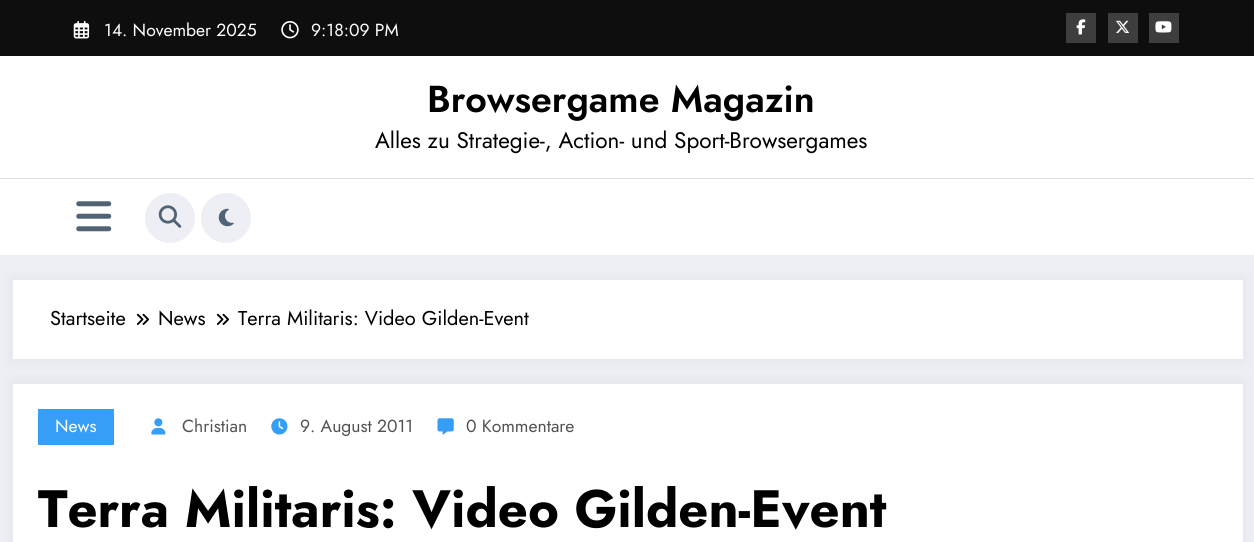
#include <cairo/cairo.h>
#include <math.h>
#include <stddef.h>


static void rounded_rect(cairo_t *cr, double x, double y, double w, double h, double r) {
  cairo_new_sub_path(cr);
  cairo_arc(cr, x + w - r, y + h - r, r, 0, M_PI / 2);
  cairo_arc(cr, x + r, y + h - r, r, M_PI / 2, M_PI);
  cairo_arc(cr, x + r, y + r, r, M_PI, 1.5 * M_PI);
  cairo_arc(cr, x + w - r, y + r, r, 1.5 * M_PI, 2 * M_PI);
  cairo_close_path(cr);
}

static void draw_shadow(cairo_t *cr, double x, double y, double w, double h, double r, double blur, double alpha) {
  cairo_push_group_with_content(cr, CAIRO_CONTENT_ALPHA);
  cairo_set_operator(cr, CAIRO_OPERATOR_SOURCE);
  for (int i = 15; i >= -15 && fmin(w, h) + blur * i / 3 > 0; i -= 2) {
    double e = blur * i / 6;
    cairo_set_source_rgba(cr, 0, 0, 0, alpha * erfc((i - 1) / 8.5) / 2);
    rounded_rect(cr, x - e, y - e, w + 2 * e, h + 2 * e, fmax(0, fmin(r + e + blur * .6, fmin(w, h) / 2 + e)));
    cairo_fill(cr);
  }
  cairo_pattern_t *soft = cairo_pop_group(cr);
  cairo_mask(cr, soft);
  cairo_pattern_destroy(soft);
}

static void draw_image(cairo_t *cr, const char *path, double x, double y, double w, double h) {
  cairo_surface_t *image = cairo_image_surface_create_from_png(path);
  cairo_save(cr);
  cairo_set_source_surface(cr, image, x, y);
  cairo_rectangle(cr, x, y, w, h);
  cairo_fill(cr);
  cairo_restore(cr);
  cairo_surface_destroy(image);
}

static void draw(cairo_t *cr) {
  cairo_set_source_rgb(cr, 238 / 255.0, 238 / 255.0, 245 / 255.0);
  cairo_paint(cr);
  cairo_set_source_rgb(cr, 14 / 255.0, 14 / 255.0, 14 / 255.0);
  cairo_rectangle(cr, 0, 0, 1254, 56);
  cairo_fill(cr);
  draw_image(cr, "images/1.png", 73, 21, 17, 18);
  draw_image(cr, "images/2.png", 281, 21, 18, 18);
  cairo_set_source_rgb(cr, 62 / 255.0, 62 / 255.0, 62 / 255.0);
  cairo_rectangle(cr, 1066, 13, 30, 30);
  cairo_fill(cr);
  draw_image(cr, "images/3.png", 1076, 19, 10, 16);
  cairo_rectangle(cr, 1108, 13, 30, 30);
  cairo_fill(cr);
  draw_image(cr, "images/4.png", 1115, 20, 15, 13);
  cairo_rectangle(cr, 1149, 13, 30, 30);
  cairo_fill(cr);
  draw_image(cr, "images/5.png", 1155, 21, 17, 12);
  cairo_set_source_rgb(cr, 1, 1, 1);
  cairo_rectangle(cr, 0, 56, 1254, 199);
  cairo_fill(cr);
  cairo_set_source_rgb(cr, 225 / 255.0, 225 / 255.0, 225 / 255.0);
  cairo_rectangle(cr, 0, 178, 1254, 1);
  cairo_fill(cr);
  draw_image(cr, "images/6.png", 76, 201, 36, 31);
  cairo_set_source_rgb(cr, 238 / 255.0, 238 / 255.0, 245 / 255.0);
  cairo_arc(cr, 170, 218, 25, 0, 2 * M_PI);
  cairo_fill(cr);
  draw_image(cr, "images/7.png", 158, 205, 24, 23);
  cairo_arc(cr, 226, 218, 25, 0, 2 * M_PI);
  cairo_fill(cr);
  draw_image(cr, "images/8.png", 218, 208, 16, 19);
  cairo_set_source_rgb(cr, 23 / 255.0, 23 / 255.0, 35 / 255.0);
  draw_shadow(cr, 10, 278, 1235, 83, 0, 5, 0.05);
  cairo_set_source_rgb(cr, 1, 1, 1);
  cairo_rectangle(cr, 13, 280, 1230, 79);
  cairo_fill(cr);
  draw_image(cr, "images/9.png", 136, 313, 13, 12);
  draw_image(cr, "images/9.png", 216, 313, 13, 12);
  cairo_set_source_rgb(cr, 23 / 255.0, 23 / 255.0, 35 / 255.0);
  draw_shadow(cr, 10, 381, 1235, 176, 0, 5, 0.05);
  cairo_set_source_rgb(cr, 1, 1, 1);
  cairo_rectangle(cr, 13, 384, 1230, 158);
  cairo_fill(cr);
  cairo_set_source_rgb(cr, 54 / 255.0, 158 / 255.0, 246 / 255.0);
  cairo_rectangle(cr, 38, 409, 76, 36);
  cairo_fill(cr);
  draw_image(cr, "images/10.png", 151, 418, 15, 17);
  draw_image(cr, "images/11.png", 271, 418, 17, 17);
  draw_image(cr, "images/12.png", 437, 418, 17, 17);
  cairo_select_font_face(cr, "Jost", CAIRO_FONT_SLANT_NORMAL, CAIRO_FONT_WEIGHT_NORMAL);
  cairo_set_font_size(cr, 17.5);
  cairo_set_source_rgb(cr, 1, 1, 1);
  cairo_move_to(cr, 104, 36);
  cairo_show_text(cr, "14. November 2025");
  cairo_move_to(cr, 311, 36);
  cairo_show_text(cr, "9:18:09 PM");
  cairo_select_font_face(cr, "Jost SemiBold", CAIRO_FONT_SLANT_NORMAL, CAIRO_FONT_WEIGHT_NORMAL);
  cairo_set_font_size(cr, 37.5);
  cairo_set_source_rgb(cr, 0, 0, 0);
  cairo_move_to(cr, 427, 112);
  cairo_show_text(cr, "Browsergame Magazin");
  cairo_select_font_face(cr, "Jost", CAIRO_FONT_SLANT_NORMAL, CAIRO_FONT_WEIGHT_NORMAL);
  cairo_set_font_size(cr, 22.5);
  cairo_move_to(cr, 375, 148);
  cairo_show_text(cr, "Alles zu Strategie-, Action- und Sport-Browsergames");
  cairo_set_font_size(cr, 20);
  cairo_move_to(cr, 50, 325);
  cairo_show_text(cr, "Startseite");
  cairo_move_to(cr, 158, 325);
  cairo_show_text(cr, "News");
  cairo_move_to(cr, 238, 325);
  cairo_show_text(cr, "Terra Militaris: Video Gilden-Event");
  cairo_set_font_size(cr, 17.5);
  cairo_set_source_rgb(cr, 1, 1, 1);
  cairo_move_to(cr, 55, 432);
  cairo_show_text(cr, "News");
  cairo_set_source_rgb(cr, 82 / 255.0, 82 / 255.0, 82 / 255.0);
  cairo_move_to(cr, 182, 432);
  cairo_show_text(cr, "Christian");
  cairo_move_to(cr, 300, 432);
  cairo_show_text(cr, "9. August 2011");
  cairo_move_to(cr, 466, 432);
  cairo_show_text(cr, "0 Kommentare");
  cairo_select_font_face(cr, "Jost", CAIRO_FONT_SLANT_NORMAL, CAIRO_FONT_WEIGHT_BOLD);
  cairo_set_font_size(cr, 52.5);
  cairo_set_source_rgb(cr, 0, 0, 0);
  cairo_move_to(cr, 38, 527);
  cairo_show_text(cr, "Terra Militaris: Video Gilden-Event");
}

int main(void) {
  cairo_surface_t *surface = cairo_image_surface_create(CAIRO_FORMAT_RGB24, 1254, 542);
  cairo_t *cr = cairo_create(surface);
  cairo_font_options_t *options = cairo_font_options_create();
  cairo_font_options_set_hint_metrics(options, CAIRO_HINT_METRICS_OFF);
  cairo_font_options_set_hint_style(options, CAIRO_HINT_STYLE_NONE);
  cairo_set_font_options(cr, options);
  cairo_set_miter_limit(cr, 4);
  draw(cr);
  cairo_surface_write_to_png(surface, "out.png");
  cairo_font_options_destroy(options);
  cairo_destroy(cr);
  cairo_surface_destroy(surface);
  return 0;
}
